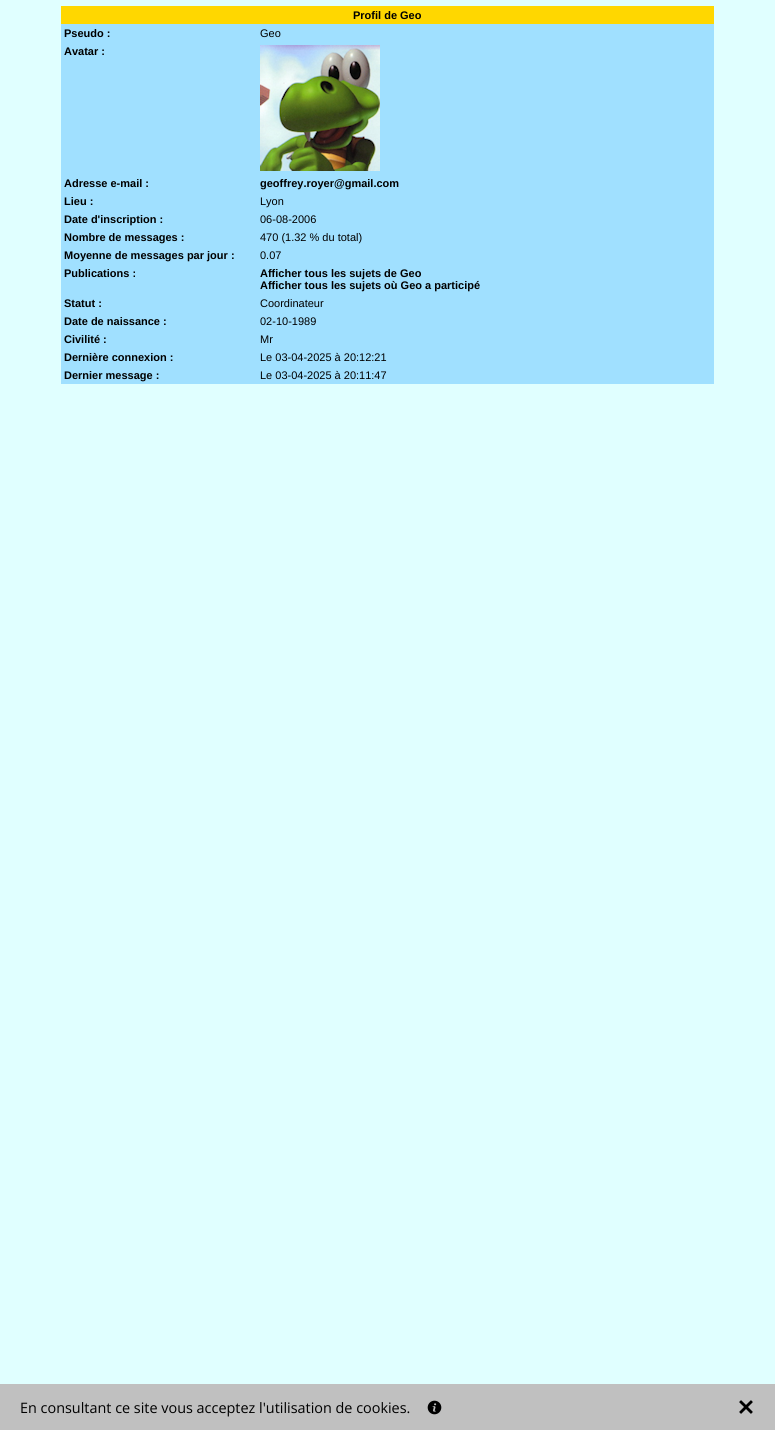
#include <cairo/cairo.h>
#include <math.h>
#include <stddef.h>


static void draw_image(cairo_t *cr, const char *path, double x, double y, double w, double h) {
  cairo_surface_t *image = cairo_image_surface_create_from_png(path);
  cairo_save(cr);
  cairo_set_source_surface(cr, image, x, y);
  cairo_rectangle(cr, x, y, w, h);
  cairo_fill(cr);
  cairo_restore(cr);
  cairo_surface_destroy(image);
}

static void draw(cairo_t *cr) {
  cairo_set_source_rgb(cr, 224 / 255.0, 1, 1);
  cairo_paint(cr);
  cairo_set_source_rgb(cr, 1, 215 / 255.0, 0);
  cairo_rectangle(cr, 61, 6, 653, 18);
  cairo_fill(cr);
  cairo_set_source_rgb(cr, 160 / 255.0, 224 / 255.0, 1);
  cairo_rectangle(cr, 61, 24, 653, 18);
  cairo_fill(cr);
  cairo_rectangle(cr, 61, 42, 653, 132);
  cairo_fill(cr);
  draw_image(cr, "images/1.png", 260, 45, 120, 126);
  cairo_rectangle(cr, 61, 174, 653, 18);
  cairo_fill(cr);
  cairo_rectangle(cr, 61, 192, 653, 18);
  cairo_fill(cr);
  cairo_rectangle(cr, 61, 210, 653, 18);
  cairo_fill(cr);
  cairo_rectangle(cr, 61, 228, 653, 18);
  cairo_fill(cr);
  cairo_rectangle(cr, 61, 246, 653, 18);
  cairo_fill(cr);
  cairo_rectangle(cr, 61, 264, 653, 30);
  cairo_fill(cr);
  cairo_rectangle(cr, 61, 294, 653, 18);
  cairo_fill(cr);
  cairo_rectangle(cr, 61, 312, 653, 18);
  cairo_fill(cr);
  cairo_rectangle(cr, 61, 330, 653, 18);
  cairo_fill(cr);
  cairo_rectangle(cr, 61, 348, 653, 18);
  cairo_fill(cr);
  cairo_rectangle(cr, 61, 366, 653, 18);
  cairo_fill(cr);
  cairo_set_source_rgb(cr, 192 / 255.0, 192 / 255.0, 192 / 255.0);
  cairo_rectangle(cr, 0, 1384, 775, 46);
  cairo_fill(cr);
  draw_image(cr, "images/2.png", 427, 1400, 15, 15);
  draw_image(cr, "images/3.png", 739, 1400, 14, 14);
  cairo_select_font_face(cr, "Liberation Sans", CAIRO_FONT_SLANT_NORMAL, CAIRO_FONT_WEIGHT_BOLD);
  cairo_set_font_size(cr, 11);
  cairo_set_source_rgb(cr, 0, 0, 0);
  cairo_move_to(cr, 353, 19);
  cairo_show_text(cr, "Profil de Geo");
  cairo_move_to(cr, 64, 37);
  cairo_show_text(cr, "Pseudo :");
  cairo_select_font_face(cr, "Liberation Sans", CAIRO_FONT_SLANT_NORMAL, CAIRO_FONT_WEIGHT_NORMAL);
  cairo_move_to(cr, 260, 37);
  cairo_show_text(cr, "Geo");
  cairo_select_font_face(cr, "Liberation Sans", CAIRO_FONT_SLANT_NORMAL, CAIRO_FONT_WEIGHT_BOLD);
  cairo_move_to(cr, 64, 55);
  cairo_show_text(cr, "Avatar :");
  cairo_move_to(cr, 64, 187);
  cairo_show_text(cr, "Adresse e-mail :");
  cairo_move_to(cr, 260, 187);
  cairo_show_text(cr, "geoffrey.royer@gmail.com");
  cairo_move_to(cr, 64, 205);
  cairo_show_text(cr, "Lieu :");
  cairo_select_font_face(cr, "Liberation Sans", CAIRO_FONT_SLANT_NORMAL, CAIRO_FONT_WEIGHT_NORMAL);
  cairo_move_to(cr, 260, 205);
  cairo_show_text(cr, "Lyon");
  cairo_select_font_face(cr, "Liberation Sans", CAIRO_FONT_SLANT_NORMAL, CAIRO_FONT_WEIGHT_BOLD);
  cairo_move_to(cr, 64, 223);
  cairo_show_text(cr, "Date d'inscription :");
  cairo_select_font_face(cr, "Liberation Sans", CAIRO_FONT_SLANT_NORMAL, CAIRO_FONT_WEIGHT_NORMAL);
  cairo_move_to(cr, 260, 223);
  cairo_show_text(cr, "06-08-2006");
  cairo_select_font_face(cr, "Liberation Sans", CAIRO_FONT_SLANT_NORMAL, CAIRO_FONT_WEIGHT_BOLD);
  cairo_move_to(cr, 64, 241);
  cairo_show_text(cr, "Nombre de messages :");
  cairo_select_font_face(cr, "Liberation Sans", CAIRO_FONT_SLANT_NORMAL, CAIRO_FONT_WEIGHT_NORMAL);
  cairo_move_to(cr, 260, 241);
  cairo_show_text(cr, "470 (1.32 % du total)");
  cairo_select_font_face(cr, "Liberation Sans", CAIRO_FONT_SLANT_NORMAL, CAIRO_FONT_WEIGHT_BOLD);
  cairo_move_to(cr, 64, 259);
  cairo_show_text(cr, "Moyenne de messages par jour :");
  cairo_select_font_face(cr, "Liberation Sans", CAIRO_FONT_SLANT_NORMAL, CAIRO_FONT_WEIGHT_NORMAL);
  cairo_move_to(cr, 260, 259);
  cairo_show_text(cr, "0.07");
  cairo_select_font_face(cr, "Liberation Sans", CAIRO_FONT_SLANT_NORMAL, CAIRO_FONT_WEIGHT_BOLD);
  cairo_move_to(cr, 64, 277);
  cairo_show_text(cr, "Publications :");
  cairo_move_to(cr, 260, 277);
  cairo_show_text(cr, "Afficher tous les sujets de Geo");
  cairo_move_to(cr, 260, 289);
  cairo_show_text(cr, "Afficher tous les sujets où Geo a participé");
  cairo_move_to(cr, 64, 307);
  cairo_show_text(cr, "Statut :");
  cairo_select_font_face(cr, "Liberation Sans", CAIRO_FONT_SLANT_NORMAL, CAIRO_FONT_WEIGHT_NORMAL);
  cairo_move_to(cr, 260, 307);
  cairo_show_text(cr, "Coordinateur");
  cairo_select_font_face(cr, "Liberation Sans", CAIRO_FONT_SLANT_NORMAL, CAIRO_FONT_WEIGHT_BOLD);
  cairo_move_to(cr, 64, 325);
  cairo_show_text(cr, "Date de naissance :");
  cairo_select_font_face(cr, "Liberation Sans", CAIRO_FONT_SLANT_NORMAL, CAIRO_FONT_WEIGHT_NORMAL);
  cairo_move_to(cr, 260, 325);
  cairo_show_text(cr, "02-10-1989");
  cairo_select_font_face(cr, "Liberation Sans", CAIRO_FONT_SLANT_NORMAL, CAIRO_FONT_WEIGHT_BOLD);
  cairo_move_to(cr, 64, 343);
  cairo_show_text(cr, "Civilité :");
  cairo_select_font_face(cr, "Liberation Sans", CAIRO_FONT_SLANT_NORMAL, CAIRO_FONT_WEIGHT_NORMAL);
  cairo_move_to(cr, 260, 343);
  cairo_show_text(cr, "Mr");
  cairo_select_font_face(cr, "Liberation Sans", CAIRO_FONT_SLANT_NORMAL, CAIRO_FONT_WEIGHT_BOLD);
  cairo_move_to(cr, 64, 361);
  cairo_show_text(cr, "Dernière connexion :");
  cairo_select_font_face(cr, "Liberation Sans", CAIRO_FONT_SLANT_NORMAL, CAIRO_FONT_WEIGHT_NORMAL);
  cairo_move_to(cr, 260, 361);
  cairo_show_text(cr, "Le 03-04-2025 à 20:12:21");
  cairo_select_font_face(cr, "Liberation Sans", CAIRO_FONT_SLANT_NORMAL, CAIRO_FONT_WEIGHT_BOLD);
  cairo_move_to(cr, 64, 379);
  cairo_show_text(cr, "Dernier message :");
  cairo_select_font_face(cr, "Liberation Sans", CAIRO_FONT_SLANT_NORMAL, CAIRO_FONT_WEIGHT_NORMAL);
  cairo_move_to(cr, 260, 379);
  cairo_show_text(cr, "Le 03-04-2025 à 20:11:47");
  cairo_select_font_face(cr, "Open Sans", CAIRO_FONT_SLANT_NORMAL, CAIRO_FONT_WEIGHT_NORMAL);
  cairo_set_font_size(cr, 14.4);
  cairo_move_to(cr, 20, 1413);
  cairo_show_text(cr, "En consultant ce site vous acceptez l'utilisation de cookies.");
}

int main(void) {
  cairo_surface_t *surface = cairo_image_surface_create(CAIRO_FORMAT_RGB24, 775, 1430);
  cairo_t *cr = cairo_create(surface);
  cairo_font_options_t *options = cairo_font_options_create();
  cairo_font_options_set_hint_metrics(options, CAIRO_HINT_METRICS_OFF);
  cairo_font_options_set_hint_style(options, CAIRO_HINT_STYLE_NONE);
  cairo_set_font_options(cr, options);
  cairo_set_miter_limit(cr, 4);
  draw(cr);
  cairo_surface_write_to_png(surface, "out.png");
  cairo_font_options_destroy(options);
  cairo_destroy(cr);
  cairo_surface_destroy(surface);
  return 0;
}
